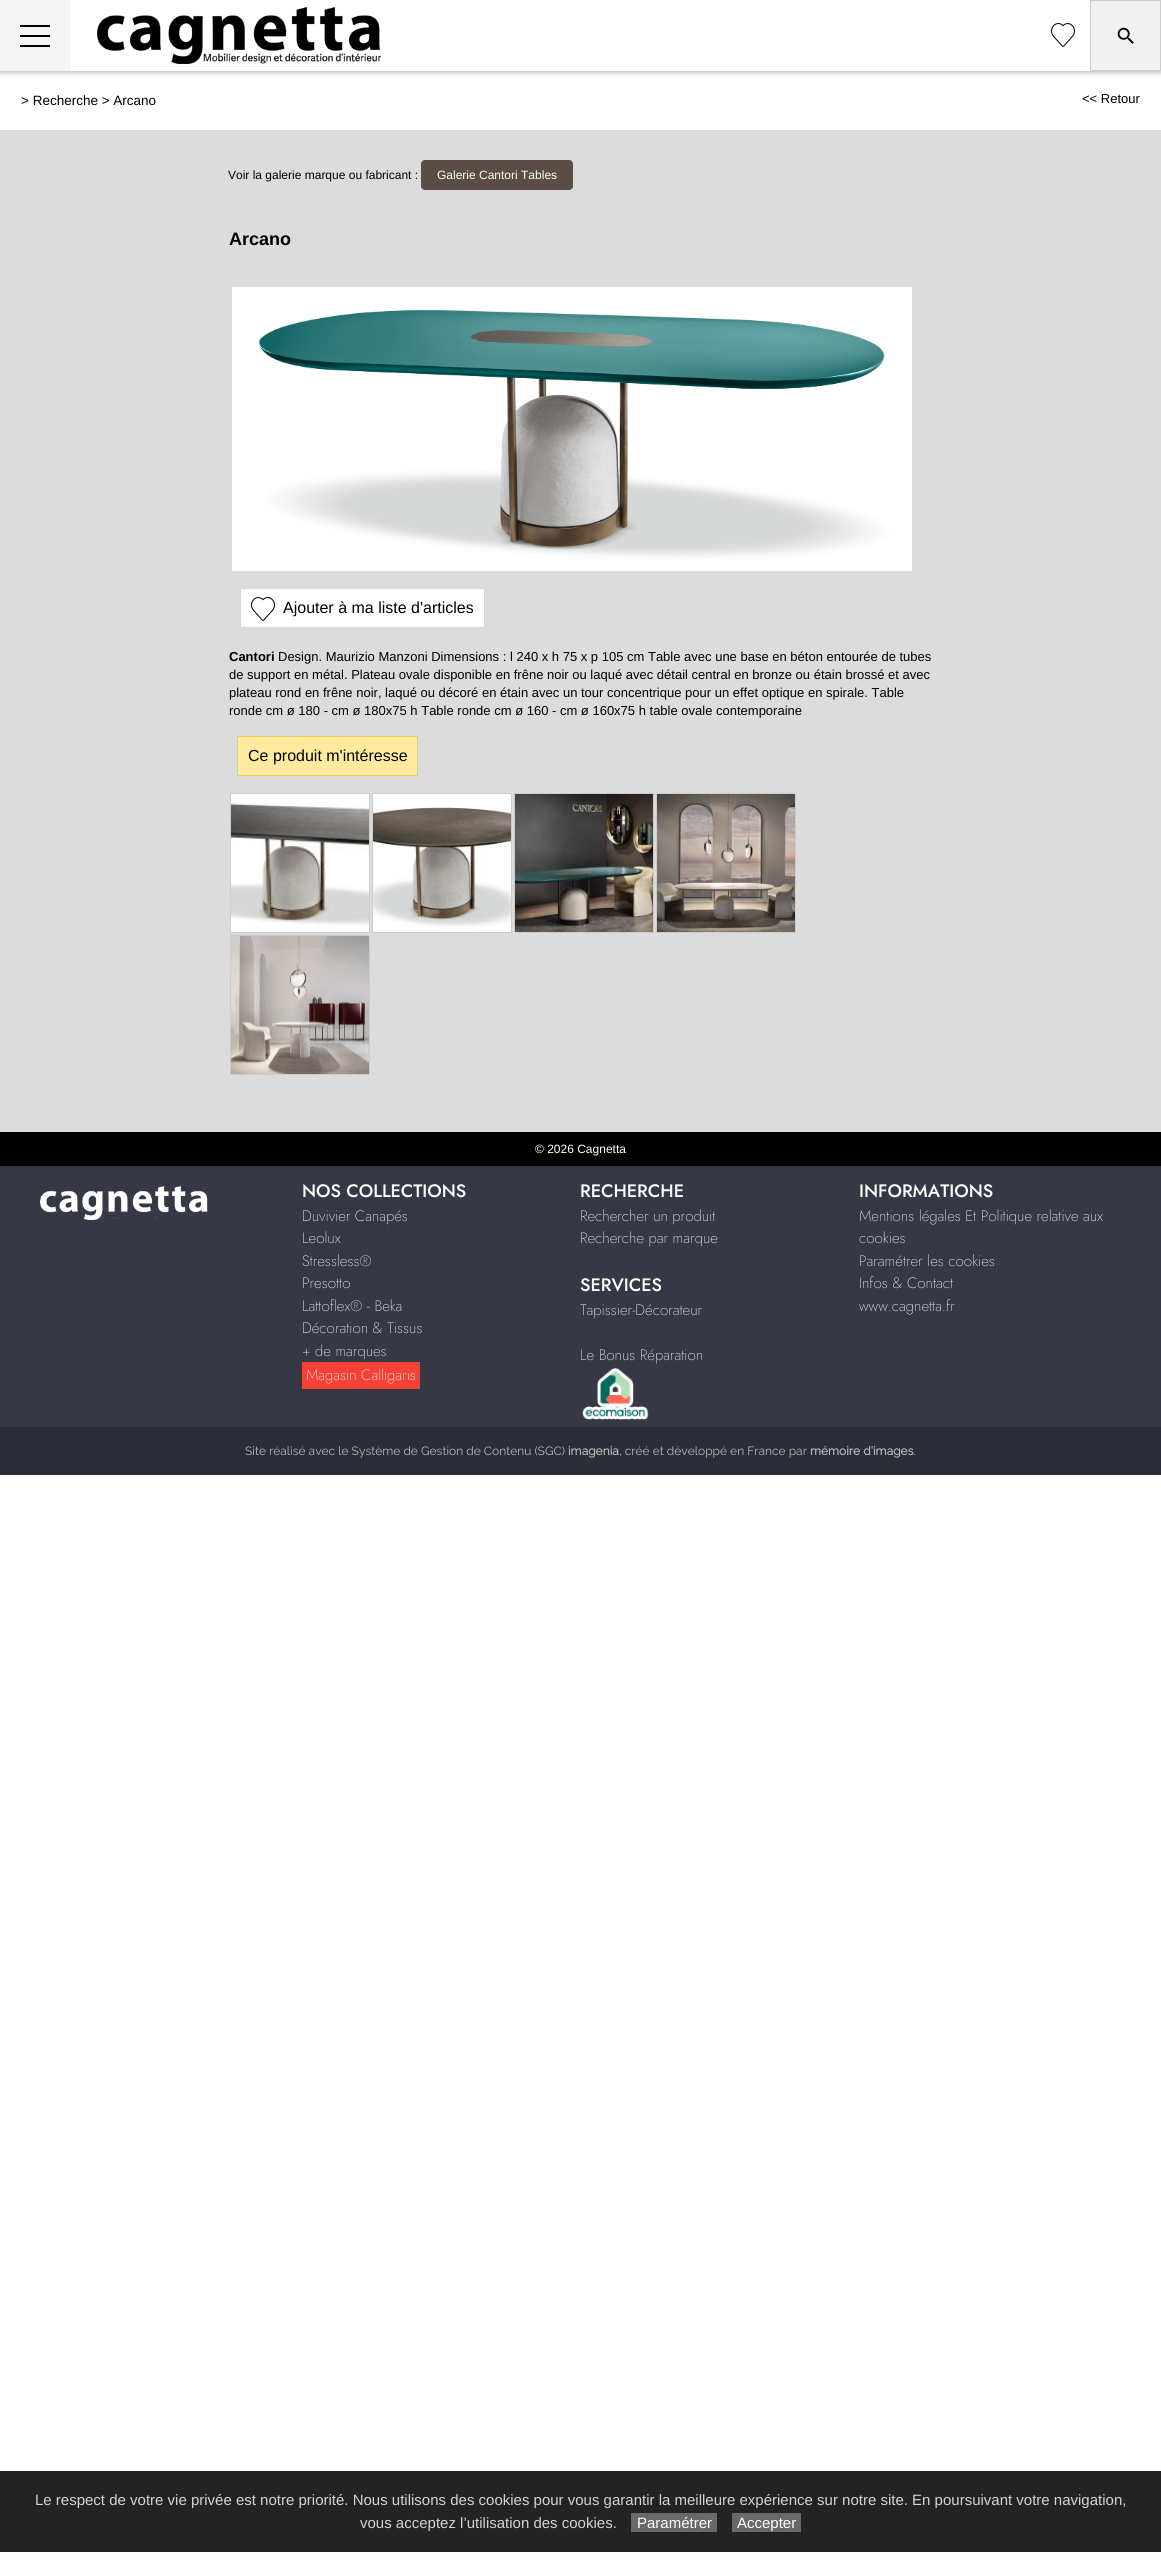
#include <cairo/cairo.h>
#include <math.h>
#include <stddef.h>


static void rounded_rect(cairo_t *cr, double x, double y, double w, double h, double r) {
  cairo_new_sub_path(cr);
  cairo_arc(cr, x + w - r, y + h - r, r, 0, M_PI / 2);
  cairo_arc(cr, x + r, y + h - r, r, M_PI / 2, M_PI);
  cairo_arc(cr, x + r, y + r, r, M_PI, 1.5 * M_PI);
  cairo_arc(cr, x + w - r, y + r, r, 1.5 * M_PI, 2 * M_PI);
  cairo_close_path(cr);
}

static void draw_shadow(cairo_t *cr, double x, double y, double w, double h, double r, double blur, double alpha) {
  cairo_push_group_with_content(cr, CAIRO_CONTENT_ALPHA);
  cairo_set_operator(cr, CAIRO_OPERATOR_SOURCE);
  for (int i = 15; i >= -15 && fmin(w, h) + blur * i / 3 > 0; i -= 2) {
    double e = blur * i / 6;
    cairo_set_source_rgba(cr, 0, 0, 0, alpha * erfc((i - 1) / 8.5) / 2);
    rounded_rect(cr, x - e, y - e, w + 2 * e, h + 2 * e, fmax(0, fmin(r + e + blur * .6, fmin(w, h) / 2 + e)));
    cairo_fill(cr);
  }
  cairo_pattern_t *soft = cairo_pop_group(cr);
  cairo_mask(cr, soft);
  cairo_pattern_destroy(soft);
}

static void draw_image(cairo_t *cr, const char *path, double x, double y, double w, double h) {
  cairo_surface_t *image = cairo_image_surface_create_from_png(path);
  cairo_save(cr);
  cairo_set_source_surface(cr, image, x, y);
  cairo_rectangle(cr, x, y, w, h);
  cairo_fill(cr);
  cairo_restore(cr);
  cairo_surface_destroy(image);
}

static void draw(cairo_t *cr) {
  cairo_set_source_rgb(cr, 1, 1, 1);
  cairo_paint(cr);
  cairo_save(cr);
  cairo_rectangle(cr, 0, 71, 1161, 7);
  cairo_clip(cr);
  cairo_set_source_rgb(cr, 0, 0, 0);
  draw_shadow(cr, 0, 2, 1161, 71, 0, 5, 0.12);
  cairo_restore(cr);
  cairo_save(cr);
  cairo_rectangle(cr, 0, 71, 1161, 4);
  cairo_clip(cr);
  cairo_set_source_rgb(cr, 0, 0, 0);
  draw_shadow(cr, 0, 2, 1161, 71, 0, 2, 0.16);
  cairo_restore(cr);
  cairo_set_source_rgb(cr, 245 / 255.0, 245 / 255.0, 245 / 255.0);
  cairo_rectangle(cr, 0, 0, 70, 71);
  cairo_fill(cr);
  cairo_set_source_rgb(cr, 0, 0, 0);
  cairo_rectangle(cr, 20, 25, 30, 2);
  cairo_fill(cr);
  cairo_rectangle(cr, 20, 35, 30, 2);
  cairo_fill(cr);
  cairo_rectangle(cr, 20, 45, 30, 2);
  cairo_fill(cr);
  draw_image(cr, "images/1.png", 97, 7, 284, 57);
  draw_image(cr, "images/2.png", 1051, 23, 24, 24);
  cairo_set_source_rgb(cr, 241 / 255.0, 241 / 255.0, 241 / 255.0);
  cairo_rectangle(cr, 1090.5, 0.5, 70, 70);
  cairo_fill_preserve(cr);
  cairo_set_source_rgb(cr, 204 / 255.0, 204 / 255.0, 204 / 255.0);
  cairo_set_line_width(cr, 1);
  cairo_stroke(cr);
  draw_image(cr, "images/3.png", 1117, 27, 17, 17);
  cairo_set_source_rgb(cr, 220 / 255.0, 220 / 255.0, 220 / 255.0);
  cairo_rectangle(cr, 0, 130, 1161, 1002);
  cairo_fill(cr);
  cairo_set_source_rgb(cr, 89 / 255.0, 77 / 255.0, 69 / 255.0);
  rounded_rect(cr, 421, 160, 152, 30, 4);
  cairo_fill(cr);
  cairo_set_source_rgb(cr, 1, 235 / 255.0, 160 / 255.0);
  cairo_rectangle(cr, 237.5, 736.5, 180, 39);
  cairo_fill_preserve(cr);
  cairo_set_source_rgb(cr, 241 / 255.0, 207 / 255.0, 76 / 255.0);
  cairo_stroke(cr);
  cairo_rectangle(cr, 230.5, 793.5, 139, 139);
  cairo_set_source_rgb(cr, 204 / 255.0, 204 / 255.0, 204 / 255.0);
  cairo_stroke(cr);
  draw_image(cr, "images/4.png", 231, 794, 138, 138);
  cairo_rectangle(cr, 372.5, 793.5, 139, 139);
  cairo_stroke(cr);
  draw_image(cr, "images/5.png", 373, 794, 138, 138);
  cairo_rectangle(cr, 514.5, 793.5, 139, 139);
  cairo_stroke(cr);
  draw_image(cr, "images/6.png", 515, 794, 138, 138);
  cairo_rectangle(cr, 656.5, 793.5, 139, 139);
  cairo_stroke(cr);
  draw_image(cr, "images/7.png", 657, 794, 138, 138);
  cairo_rectangle(cr, 230.5, 935.5, 139, 139);
  cairo_stroke(cr);
  draw_image(cr, "images/8.png", 231, 936, 138, 138);
  draw_image(cr, "images/9.png", 232, 287, 680, 284);
  cairo_set_source_rgb(cr, 1, 1, 1);
  cairo_rectangle(cr, 240.5, 588.5, 244, 39);
  cairo_fill_preserve(cr);
  cairo_set_source_rgb(cr, 214 / 255.0, 214 / 255.0, 214 / 255.0);
  cairo_stroke(cr);
  draw_image(cr, "images/2.png", 251, 597, 24, 24);
  cairo_set_source_rgb(cr, 0, 0, 0);
  cairo_rectangle(cr, 0, 1132, 1161, 34);
  cairo_fill(cr);
  cairo_set_source_rgb(cr, 54 / 255.0, 57 / 255.0, 69 / 255.0);
  cairo_rectangle(cr, 0, 1166, 1161, 261);
  cairo_fill(cr);
  draw_image(cr, "images/10.png", 40, 1186, 168, 34);
  cairo_set_source_rgb(cr, 244 / 255.0, 67 / 255.0, 54 / 255.0);
  cairo_rectangle(cr, 302, 1362, 118, 27);
  cairo_fill(cr);
  draw_image(cr, "images/11.png", 582, 1368, 67, 52);
  cairo_set_source_rgb(cr, 43 / 255.0, 45 / 255.0, 55 / 255.0);
  cairo_rectangle(cr, 0, 1427, 1161, 48);
  cairo_fill(cr);
  cairo_set_source_rgb(cr, 35 / 255.0, 35 / 255.0, 35 / 255.0);
  cairo_rectangle(cr, 0, 2471, 1161, 81);
  cairo_fill(cr);
  cairo_set_source_rgb(cr, 105 / 255.0, 105 / 255.0, 105 / 255.0);
  cairo_rectangle(cr, 631, 2513, 86, 19);
  cairo_fill(cr);
  cairo_rectangle(cr, 732, 2513, 69, 19);
  cairo_fill(cr);
  cairo_select_font_face(cr, "Liberation Sans", CAIRO_FONT_SLANT_NORMAL, CAIRO_FONT_WEIGHT_NORMAL);
  cairo_set_font_size(cr, 13.5);
  cairo_set_source_rgb(cr, 0, 0, 0);
  cairo_move_to(cr, 21, 105);
  cairo_show_text(cr, "> Recherche > Arcano");
  cairo_set_font_size(cr, 13);
  cairo_move_to(cr, 1082, 103);
  cairo_show_text(cr, "<< Retour");
  cairo_set_font_size(cr, 12);
  cairo_move_to(cr, 228, 179);
  cairo_show_text(cr, "Voir la galerie marque ou fabricant :");
  cairo_set_source_rgb(cr, 1, 1, 1);
  cairo_move_to(cr, 437, 179);
  cairo_show_text(cr, "Galerie Cantori Tables");
  cairo_select_font_face(cr, "Liberation Sans", CAIRO_FONT_SLANT_NORMAL, CAIRO_FONT_WEIGHT_BOLD);
  cairo_set_font_size(cr, 18);
  cairo_set_source_rgb(cr, 0, 0, 0);
  cairo_move_to(cr, 229, 245);
  cairo_show_text(cr, "Arcano");
  cairo_set_font_size(cr, 13);
  cairo_move_to(cr, 229, 661);
  cairo_show_text(cr, "Cantori");
  cairo_select_font_face(cr, "Liberation Sans", CAIRO_FONT_SLANT_NORMAL, CAIRO_FONT_WEIGHT_NORMAL);
  cairo_move_to(cr, 278, 661);
  cairo_show_text(cr, "Design. Maurizio Manzoni Dimensions : l 240 x h 75 x p 105 cm Table avec une base en béton entourée de tubes");
  cairo_move_to(cr, 229, 679);
  cairo_show_text(cr, "de support en métal. Plateau ovale disponible en frêne noir ou laqué avec détail central en bronze ou étain brossé et avec");
  cairo_move_to(cr, 229, 697);
  cairo_show_text(cr, "plateau rond en frêne noir, laqué ou décoré en étain avec un tour concentrique pour un effet optique en spirale. Table");
  cairo_move_to(cr, 229, 715);
  cairo_show_text(cr, "ronde cm ø 180 - cm ø 180x75 h Table ronde cm ø 160 - cm ø 160x75 h table ovale contemporaine");
  cairo_set_font_size(cr, 16);
  cairo_move_to(cr, 248, 761);
  cairo_show_text(cr, "Ce produit m'intéresse");
  cairo_move_to(cr, 283, 613);
  cairo_show_text(cr, "Ajouter à ma liste d'articles");
  cairo_set_font_size(cr, 12);
  cairo_set_source_rgb(cr, 1, 1, 1);
  cairo_move_to(cr, 535, 1153);
  cairo_show_text(cr, "© 2026 Cagnetta");
  cairo_select_font_face(cr, "Jost Medium", CAIRO_FONT_SLANT_NORMAL, CAIRO_FONT_WEIGHT_NORMAL);
  cairo_set_font_size(cr, 18);
  cairo_move_to(cr, 302, 1197);
  cairo_show_text(cr, "NOS COLLECTIONS");
  cairo_select_font_face(cr, "Jost ExtraLight", CAIRO_FONT_SLANT_NORMAL, CAIRO_FONT_WEIGHT_NORMAL);
  cairo_set_font_size(cr, 15);
  cairo_move_to(cr, 302, 1221);
  cairo_show_text(cr, "Duvivier Canapés");
  cairo_move_to(cr, 302, 1243);
  cairo_show_text(cr, "Leolux");
  cairo_move_to(cr, 302, 1266);
  cairo_show_text(cr, "Stressless®");
  cairo_move_to(cr, 302, 1288);
  cairo_show_text(cr, "Presotto");
  cairo_move_to(cr, 302, 1311);
  cairo_show_text(cr, "Lattoflex® - Beka");
  cairo_move_to(cr, 302, 1333);
  cairo_show_text(cr, "Décoration & Tissus");
  cairo_move_to(cr, 302, 1356);
  cairo_show_text(cr, "+ de marques");
  cairo_move_to(cr, 306, 1380);
  cairo_show_text(cr, "Magasin Calligaris");
  cairo_select_font_face(cr, "Jost Medium", CAIRO_FONT_SLANT_NORMAL, CAIRO_FONT_WEIGHT_NORMAL);
  cairo_set_font_size(cr, 18);
  cairo_move_to(cr, 580, 1197);
  cairo_show_text(cr, "RECHERCHE");
  cairo_select_font_face(cr, "Jost ExtraLight", CAIRO_FONT_SLANT_NORMAL, CAIRO_FONT_WEIGHT_NORMAL);
  cairo_set_font_size(cr, 15);
  cairo_move_to(cr, 580, 1221);
  cairo_show_text(cr, "Rechercher un produit");
  cairo_move_to(cr, 580, 1243);
  cairo_show_text(cr, "Recherche par marque");
  cairo_select_font_face(cr, "Jost Medium", CAIRO_FONT_SLANT_NORMAL, CAIRO_FONT_WEIGHT_NORMAL);
  cairo_set_font_size(cr, 18);
  cairo_move_to(cr, 580, 1291);
  cairo_show_text(cr, "SERVICES");
  cairo_select_font_face(cr, "Jost ExtraLight", CAIRO_FONT_SLANT_NORMAL, CAIRO_FONT_WEIGHT_NORMAL);
  cairo_set_font_size(cr, 15);
  cairo_move_to(cr, 580, 1315);
  cairo_show_text(cr, "Tapissier-Décorateur");
  cairo_move_to(cr, 580, 1360);
  cairo_show_text(cr, "Le Bonus Réparation");
  cairo_select_font_face(cr, "Jost Medium", CAIRO_FONT_SLANT_NORMAL, CAIRO_FONT_WEIGHT_NORMAL);
  cairo_set_font_size(cr, 18);
  cairo_move_to(cr, 859, 1197);
  cairo_show_text(cr, "INFORMATIONS");
  cairo_select_font_face(cr, "Jost ExtraLight", CAIRO_FONT_SLANT_NORMAL, CAIRO_FONT_WEIGHT_NORMAL);
  cairo_set_font_size(cr, 15);
  cairo_move_to(cr, 859, 1221);
  cairo_show_text(cr, "Mentions légales Et Politique relative aux");
  cairo_move_to(cr, 859, 1243);
  cairo_show_text(cr, "cookies");
  cairo_move_to(cr, 859, 1266);
  cairo_show_text(cr, "Paramétrer les cookies");
  cairo_move_to(cr, 859, 1288);
  cairo_show_text(cr, "Infos & Contact");
  cairo_move_to(cr, 859, 1311);
  cairo_show_text(cr, "www.cagnetta.fr");
  cairo_select_font_face(cr, "Raleway Thin", CAIRO_FONT_SLANT_NORMAL, CAIRO_FONT_WEIGHT_NORMAL);
  cairo_set_font_size(cr, 12);
  cairo_set_source_rgb(cr, 184 / 255.0, 184 / 255.0, 184 / 255.0);
  cairo_move_to(cr, 245, 1455);
  cairo_show_text(cr, "Site réalisé avec le Système de Gestion de Contenu (SGC)");
  cairo_select_font_face(cr, "Raleway", CAIRO_FONT_SLANT_NORMAL, CAIRO_FONT_WEIGHT_BOLD);
  cairo_move_to(cr, 568, 1455);
  cairo_show_text(cr, "imagenia");
  cairo_select_font_face(cr, "Raleway Thin", CAIRO_FONT_SLANT_NORMAL, CAIRO_FONT_WEIGHT_NORMAL);
  cairo_move_to(cr, 619, 1455);
  cairo_show_text(cr, ", créé et développé en France par");
  cairo_select_font_face(cr, "Raleway", CAIRO_FONT_SLANT_NORMAL, CAIRO_FONT_WEIGHT_BOLD);
  cairo_move_to(cr, 810, 1455);
  cairo_show_text(cr, "mémoire d'images");
  cairo_select_font_face(cr, "Raleway Thin", CAIRO_FONT_SLANT_NORMAL, CAIRO_FONT_WEIGHT_NORMAL);
  cairo_move_to(cr, 913, 1455);
  cairo_show_text(cr, ".");
  cairo_select_font_face(cr, "Liberation Sans", CAIRO_FONT_SLANT_NORMAL, CAIRO_FONT_WEIGHT_NORMAL);
  cairo_set_font_size(cr, 15);
  cairo_set_source_rgb(cr, 211 / 255.0, 211 / 255.0, 211 / 255.0);
  cairo_move_to(cr, 35, 2505);
  cairo_show_text(cr, "Le respect de votre vie privée est notre priorité. Nous utilisons des cookies pour vous garantir la meilleure expérience sur notre site. En poursuivant votre navigation,");
  cairo_move_to(cr, 360, 2528);
  cairo_show_text(cr, "vous acceptez l’utilisation des cookies.");
  cairo_set_source_rgb(cr, 1, 1, 1);
  cairo_move_to(cr, 637, 2528);
  cairo_show_text(cr, "Paramétrer");
  cairo_move_to(cr, 737, 2528);
  cairo_show_text(cr, "Accepter");
}

int main(void) {
  cairo_surface_t *surface = cairo_image_surface_create(CAIRO_FORMAT_RGB24, 1161, 2552);
  cairo_t *cr = cairo_create(surface);
  cairo_font_options_t *options = cairo_font_options_create();
  cairo_font_options_set_hint_metrics(options, CAIRO_HINT_METRICS_OFF);
  cairo_font_options_set_hint_style(options, CAIRO_HINT_STYLE_NONE);
  cairo_set_font_options(cr, options);
  cairo_set_miter_limit(cr, 4);
  draw(cr);
  cairo_surface_write_to_png(surface, "out.png");
  cairo_font_options_destroy(options);
  cairo_destroy(cr);
  cairo_surface_destroy(surface);
  return 0;
}
